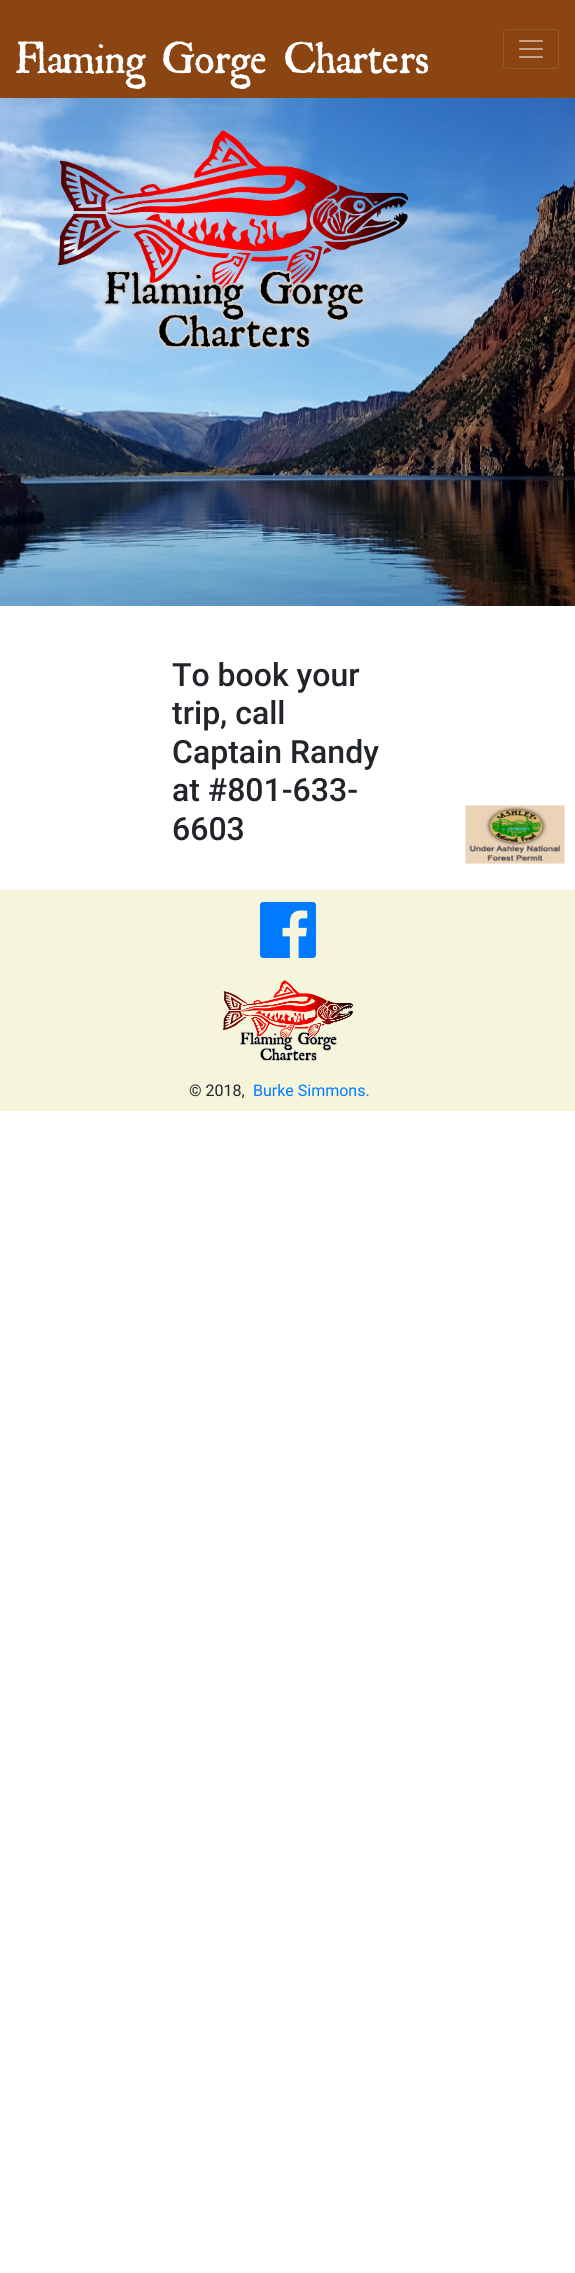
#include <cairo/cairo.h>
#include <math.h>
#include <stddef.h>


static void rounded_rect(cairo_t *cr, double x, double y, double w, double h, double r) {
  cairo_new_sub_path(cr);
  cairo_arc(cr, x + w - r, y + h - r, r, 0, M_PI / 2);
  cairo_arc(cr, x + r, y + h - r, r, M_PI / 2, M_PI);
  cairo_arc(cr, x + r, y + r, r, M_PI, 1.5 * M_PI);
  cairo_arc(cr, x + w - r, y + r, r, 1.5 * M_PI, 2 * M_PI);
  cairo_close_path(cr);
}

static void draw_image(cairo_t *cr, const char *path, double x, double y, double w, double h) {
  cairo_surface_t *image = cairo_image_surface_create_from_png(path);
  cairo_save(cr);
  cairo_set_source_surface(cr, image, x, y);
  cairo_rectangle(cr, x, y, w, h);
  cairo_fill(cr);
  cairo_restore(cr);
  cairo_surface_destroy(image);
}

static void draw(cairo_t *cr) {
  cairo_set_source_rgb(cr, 1, 1, 1);
  cairo_paint(cr);
  cairo_set_source_rgb(cr, 139 / 255.0, 69 / 255.0, 19 / 255.0);
  cairo_rectangle(cr, 0, 0, 575, 98);
  cairo_fill(cr);
  rounded_rect(cr, 503.5, 29.5, 55, 39, 3.5);
  cairo_set_source_rgb(cr, 151 / 255.0, 88 / 255.0, 43 / 255.0);
  cairo_set_line_width(cr, 1);
  cairo_stroke(cr);
  draw_image(cr, "images/1.png", 519, 40, 24, 18);
  draw_image(cr, "images/2.png", 0, 98, 575, 508);
  draw_image(cr, "images/3.png", 58, 130, 350, 219);
  draw_image(cr, "images/4.png", 465, 805, 100, 59);
  cairo_set_source_rgb(cr, 245 / 255.0, 245 / 255.0, 220 / 255.0);
  cairo_rectangle(cr, 0, 890, 575, 221);
  cairo_fill(cr);
  draw_image(cr, "images/5.png", 260, 902, 56, 56);
  draw_image(cr, "images/6.png", 223, 980, 130, 81);
  cairo_select_font_face(cr, "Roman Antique", CAIRO_FONT_SLANT_NORMAL, CAIRO_FONT_WEIGHT_NORMAL);
  cairo_set_font_size(cr, 48);
  cairo_set_source_rgb(cr, 1, 1, 1);
  cairo_move_to(cr, 16, 73);
  cairo_show_text(cr, "Flaming Gorge Charters");
  cairo_select_font_face(cr, "Roboto Medium", CAIRO_FONT_SLANT_NORMAL, CAIRO_FONT_WEIGHT_NORMAL);
  cairo_set_font_size(cr, 32);
  cairo_set_source_rgb(cr, 33 / 255.0, 37 / 255.0, 41 / 255.0);
  cairo_move_to(cr, 172, 686);
  cairo_show_text(cr, "To book your");
  cairo_move_to(cr, 172, 724);
  cairo_show_text(cr, "trip, call");
  cairo_move_to(cr, 172, 763);
  cairo_show_text(cr, "Captain Randy");
  cairo_move_to(cr, 172, 801);
  cairo_show_text(cr, "at #801-633-");
  cairo_move_to(cr, 172, 840);
  cairo_show_text(cr, "6603");
  cairo_select_font_face(cr, "Roboto", CAIRO_FONT_SLANT_NORMAL, CAIRO_FONT_WEIGHT_NORMAL);
  cairo_set_font_size(cr, 16);
  cairo_move_to(cr, 189, 1096);
  cairo_show_text(cr, "© 2018,");
  cairo_set_source_rgb(cr, 0, 123 / 255.0, 1);
  cairo_move_to(cr, 253, 1096);
  cairo_show_text(cr, "Burke Simmons.");
}

int main(void) {
  cairo_surface_t *surface = cairo_image_surface_create(CAIRO_FORMAT_RGB24, 575, 2273);
  cairo_t *cr = cairo_create(surface);
  cairo_font_options_t *options = cairo_font_options_create();
  cairo_font_options_set_hint_metrics(options, CAIRO_HINT_METRICS_OFF);
  cairo_font_options_set_hint_style(options, CAIRO_HINT_STYLE_NONE);
  cairo_set_font_options(cr, options);
  cairo_set_miter_limit(cr, 4);
  draw(cr);
  cairo_surface_write_to_png(surface, "out.png");
  cairo_font_options_destroy(options);
  cairo_destroy(cr);
  cairo_surface_destroy(surface);
  return 0;
}
